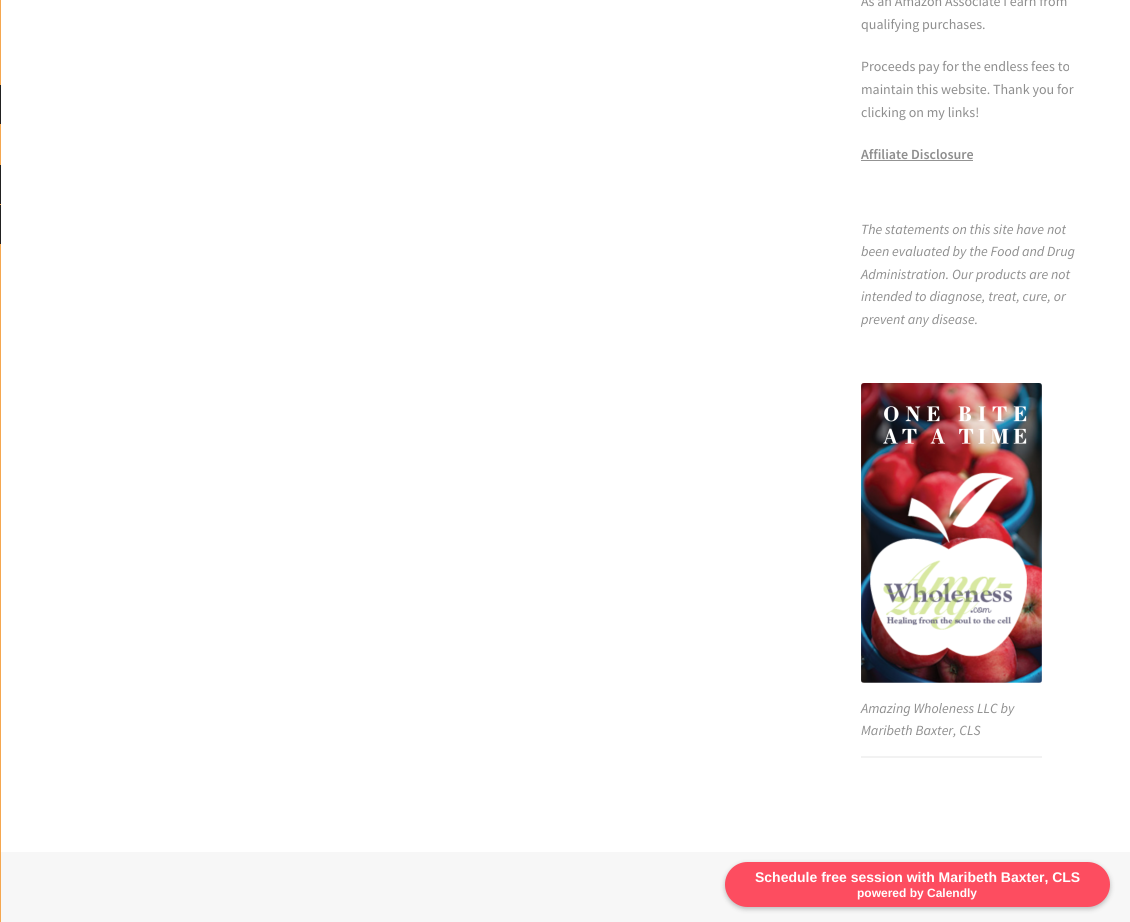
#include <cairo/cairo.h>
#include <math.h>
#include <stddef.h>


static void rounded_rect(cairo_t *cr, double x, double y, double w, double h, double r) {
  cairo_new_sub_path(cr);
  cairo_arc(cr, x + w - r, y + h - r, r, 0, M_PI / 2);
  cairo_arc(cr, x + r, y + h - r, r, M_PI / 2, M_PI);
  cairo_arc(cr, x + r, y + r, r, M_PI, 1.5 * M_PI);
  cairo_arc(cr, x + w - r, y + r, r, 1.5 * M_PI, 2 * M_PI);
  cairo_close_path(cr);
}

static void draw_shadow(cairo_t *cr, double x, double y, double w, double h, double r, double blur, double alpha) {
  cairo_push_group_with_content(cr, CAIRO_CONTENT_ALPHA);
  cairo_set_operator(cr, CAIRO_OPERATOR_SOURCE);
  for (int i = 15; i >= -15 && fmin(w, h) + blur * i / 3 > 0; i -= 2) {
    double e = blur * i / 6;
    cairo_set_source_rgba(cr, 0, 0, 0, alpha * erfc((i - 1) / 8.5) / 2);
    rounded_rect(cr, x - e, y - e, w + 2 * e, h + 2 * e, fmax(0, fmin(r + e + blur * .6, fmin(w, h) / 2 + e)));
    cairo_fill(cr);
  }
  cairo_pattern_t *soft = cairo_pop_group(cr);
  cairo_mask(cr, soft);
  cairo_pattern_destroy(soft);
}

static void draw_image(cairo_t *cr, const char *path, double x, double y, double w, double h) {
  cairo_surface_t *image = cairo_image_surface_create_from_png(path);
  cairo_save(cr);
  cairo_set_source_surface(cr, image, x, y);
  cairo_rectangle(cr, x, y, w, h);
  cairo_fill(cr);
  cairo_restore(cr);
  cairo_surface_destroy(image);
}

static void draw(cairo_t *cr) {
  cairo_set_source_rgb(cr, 1, 1, 1);
  cairo_paint(cr);
  cairo_set_source_rgb(cr, 245 / 255.0, 167 / 255.0, 79 / 255.0);
  cairo_rectangle(cr, 0, 0, 1, 922);
  cairo_fill(cr);
  cairo_set_source_rgb(cr, 33 / 255.0, 33 / 255.0, 33 / 255.0);
  cairo_rectangle(cr, 0, 85, 1, 39);
  cairo_fill(cr);
  cairo_rectangle(cr, 0, 165, 1, 39);
  cairo_fill(cr);
  cairo_rectangle(cr, 0, 205, 1, 39);
  cairo_fill(cr);
  cairo_set_source_rgb(cr, 147 / 255.0, 147 / 255.0, 147 / 255.0);
  cairo_rectangle(cr, 861, 160, 112, 1);
  cairo_fill(cr);
  draw_image(cr, "images/1.png", 861, 383, 181, 300);
  cairo_set_source_rgb(cr, 242 / 255.0, 242 / 255.0, 242 / 255.0);
  cairo_rectangle(cr, 861, 756, 181, 2);
  cairo_fill(cr);
  cairo_set_source_rgb(cr, 247 / 255.0, 247 / 255.0, 247 / 255.0);
  cairo_rectangle(cr, 1, 852, 1129, 70);
  cairo_fill(cr);
  cairo_set_source_rgb(cr, 0, 0, 0);
  draw_shadow(cr, 725, 864, 385, 45, 22.5, 2.5, 0.25);
  cairo_set_source_rgb(cr, 253 / 255.0, 77 / 255.0, 96 / 255.0);
  rounded_rect(cr, 725, 862, 385, 45, 22.5);
  cairo_fill(cr);
  cairo_select_font_face(cr, "Source Sans Pro", CAIRO_FONT_SLANT_NORMAL, CAIRO_FONT_WEIGHT_NORMAL);
  cairo_set_font_size(cr, 14);
  cairo_set_source_rgb(cr, 142 / 255.0, 142 / 255.0, 142 / 255.0);
  cairo_move_to(cr, 861, 6);
  cairo_show_text(cr, "As an Amazon Associate I earn from");
  cairo_move_to(cr, 861, 29);
  cairo_show_text(cr, "qualifying purchases.");
  cairo_move_to(cr, 861, 71);
  cairo_show_text(cr, "Proceeds pay for the endless fees to");
  cairo_move_to(cr, 861, 94);
  cairo_show_text(cr, "maintain this website. Thank you for");
  cairo_move_to(cr, 861, 117);
  cairo_show_text(cr, "clicking on my links!");
  cairo_select_font_face(cr, "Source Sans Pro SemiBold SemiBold", CAIRO_FONT_SLANT_NORMAL, CAIRO_FONT_WEIGHT_NORMAL);
  cairo_move_to(cr, 861, 159);
  cairo_show_text(cr, "Affiliate Disclosure");
  cairo_select_font_face(cr, "Source Sans Pro", CAIRO_FONT_SLANT_ITALIC, CAIRO_FONT_WEIGHT_NORMAL);
  cairo_move_to(cr, 861, 234);
  cairo_show_text(cr, "The statements on this site have not");
  cairo_move_to(cr, 861, 256);
  cairo_show_text(cr, "been evaluated by the Food and Drug");
  cairo_move_to(cr, 861, 279);
  cairo_show_text(cr, "Administration. Our products are not");
  cairo_move_to(cr, 861, 301);
  cairo_show_text(cr, "intended to diagnose, treat, cure, or");
  cairo_move_to(cr, 861, 324);
  cairo_show_text(cr, "prevent any disease.");
  cairo_move_to(cr, 861, 713);
  cairo_show_text(cr, "Amazing Wholeness LLC by");
  cairo_move_to(cr, 861, 735);
  cairo_show_text(cr, "Maribeth Baxter, CLS");
  cairo_select_font_face(cr, "Liberation Sans", CAIRO_FONT_SLANT_NORMAL, CAIRO_FONT_WEIGHT_BOLD);
  cairo_set_source_rgb(cr, 1, 1, 1);
  cairo_move_to(cr, 755, 882);
  cairo_show_text(cr, "Schedule free session with Maribeth Baxter, CLS");
  cairo_set_font_size(cr, 12);
  cairo_move_to(cr, 857, 897);
  cairo_show_text(cr, "powered by Calendly");
}

int main(void) {
  cairo_surface_t *surface = cairo_image_surface_create(CAIRO_FORMAT_RGB24, 1130, 922);
  cairo_t *cr = cairo_create(surface);
  cairo_font_options_t *options = cairo_font_options_create();
  cairo_font_options_set_hint_metrics(options, CAIRO_HINT_METRICS_OFF);
  cairo_font_options_set_hint_style(options, CAIRO_HINT_STYLE_NONE);
  cairo_set_font_options(cr, options);
  cairo_set_miter_limit(cr, 4);
  draw(cr);
  cairo_surface_write_to_png(surface, "out.png");
  cairo_font_options_destroy(options);
  cairo_destroy(cr);
  cairo_surface_destroy(surface);
  return 0;
}
